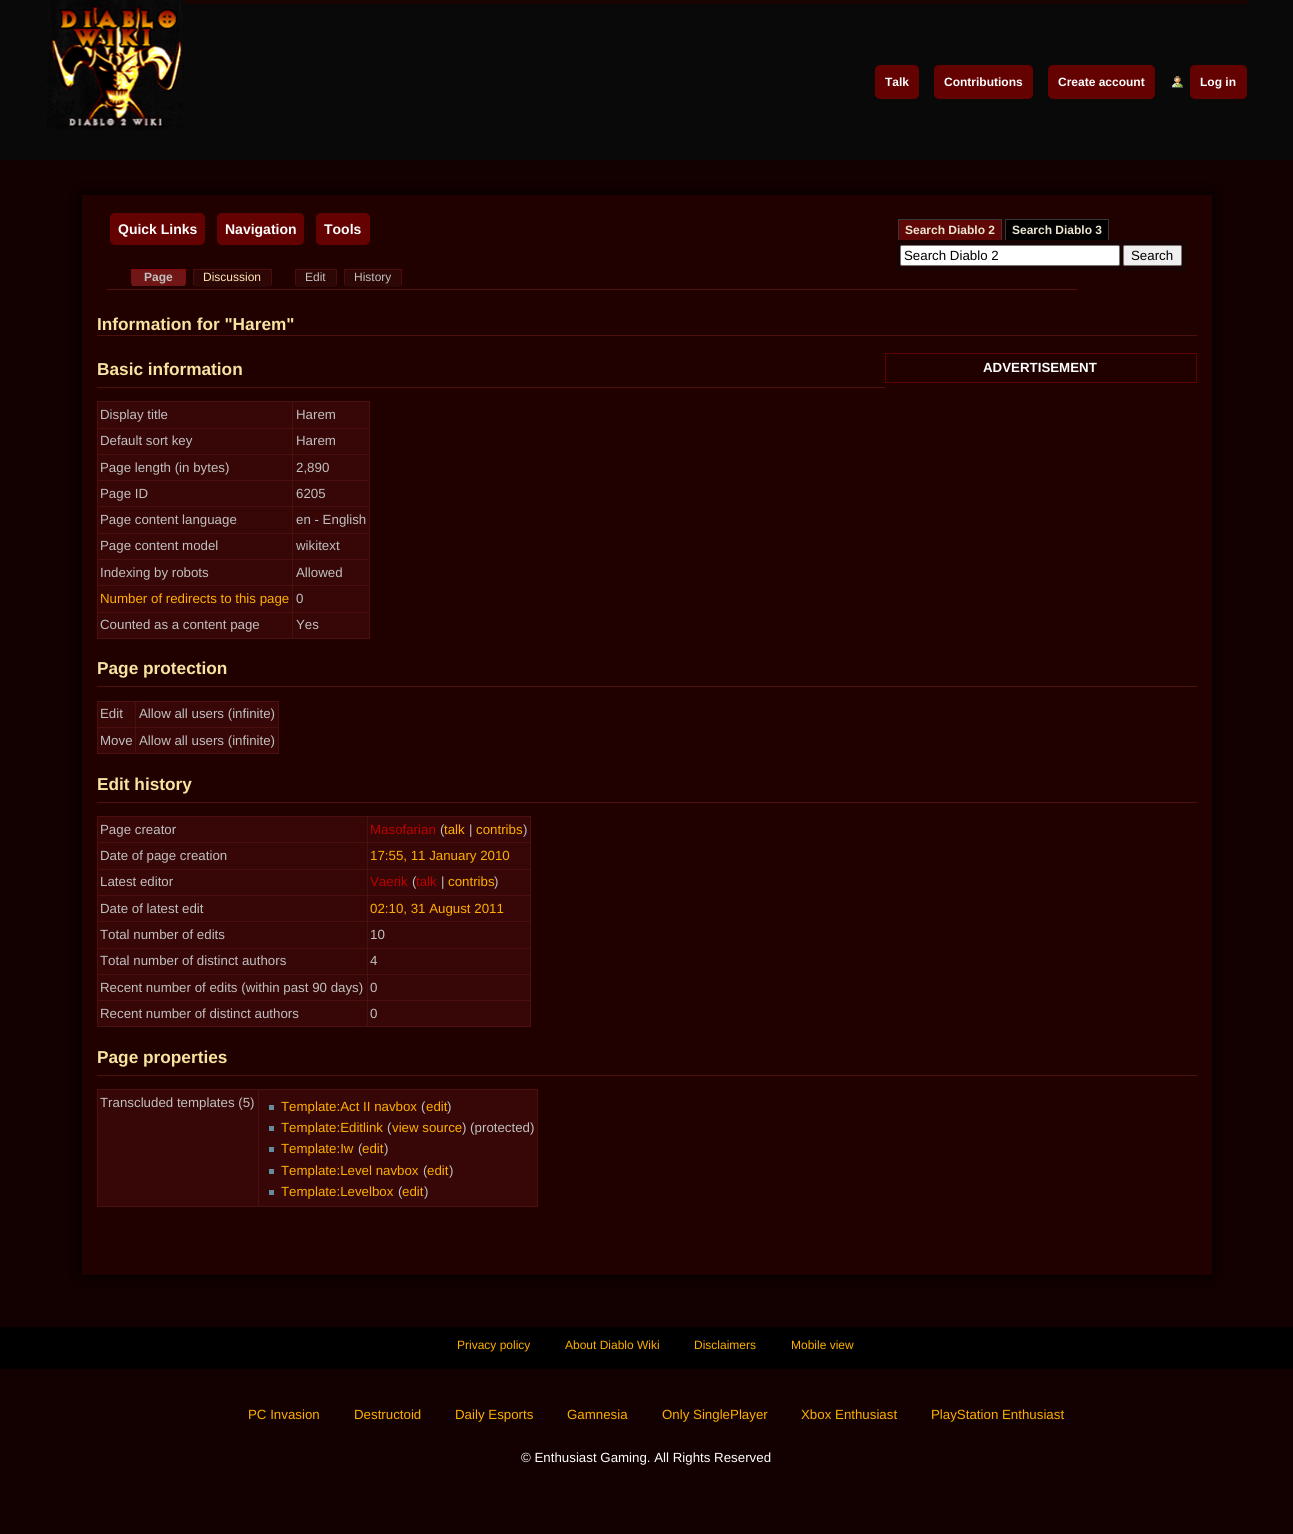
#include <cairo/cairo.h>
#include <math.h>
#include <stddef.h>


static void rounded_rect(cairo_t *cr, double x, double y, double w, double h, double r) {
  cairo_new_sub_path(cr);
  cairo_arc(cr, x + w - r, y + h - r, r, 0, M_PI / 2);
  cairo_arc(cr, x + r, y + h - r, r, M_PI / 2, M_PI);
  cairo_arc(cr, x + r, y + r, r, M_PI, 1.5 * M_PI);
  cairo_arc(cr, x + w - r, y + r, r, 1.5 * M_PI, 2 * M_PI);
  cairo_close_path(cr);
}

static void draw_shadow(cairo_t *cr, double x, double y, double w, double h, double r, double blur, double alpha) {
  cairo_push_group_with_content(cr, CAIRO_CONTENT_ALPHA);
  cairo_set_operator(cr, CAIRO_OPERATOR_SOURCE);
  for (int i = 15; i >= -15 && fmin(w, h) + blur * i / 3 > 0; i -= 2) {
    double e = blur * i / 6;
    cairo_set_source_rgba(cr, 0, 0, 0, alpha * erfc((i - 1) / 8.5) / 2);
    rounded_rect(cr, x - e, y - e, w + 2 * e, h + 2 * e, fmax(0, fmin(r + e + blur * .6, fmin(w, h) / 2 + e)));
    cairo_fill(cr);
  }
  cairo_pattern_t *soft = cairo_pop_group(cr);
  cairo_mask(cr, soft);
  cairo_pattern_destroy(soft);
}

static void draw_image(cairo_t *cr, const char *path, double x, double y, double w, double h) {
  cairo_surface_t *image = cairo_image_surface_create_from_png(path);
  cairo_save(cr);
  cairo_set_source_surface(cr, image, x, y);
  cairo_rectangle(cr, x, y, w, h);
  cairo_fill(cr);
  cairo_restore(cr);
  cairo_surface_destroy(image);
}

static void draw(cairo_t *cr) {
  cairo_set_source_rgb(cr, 19 / 255.0, 0, 0);
  cairo_paint(cr);
  cairo_set_source_rgb(cr, 9 / 255.0, 9 / 255.0, 9 / 255.0);
  cairo_rectangle(cr, 0, 0, 1293, 160);
  cairo_fill(cr);
  cairo_set_source_rgb(cr, 26 / 255.0, 3 / 255.0, 3 / 255.0);
  cairo_rectangle(cr, 184, 0, 1063, 4);
  cairo_fill(cr);
  draw_image(cr, "images/1.png", 47, 0, 137, 130);
  cairo_set_source_rgb(cr, 100 / 255.0, 1 / 255.0, 1 / 255.0);
  rounded_rect(cr, 875, 65, 44, 34, 5);
  cairo_fill(cr);
  rounded_rect(cr, 934, 65, 99, 34, 5);
  cairo_fill(cr);
  rounded_rect(cr, 1048, 65, 107, 34, 5);
  cairo_fill(cr);
  draw_image(cr, "images/2.png", 1172, 76, 11, 12);
  rounded_rect(cr, 1190, 65, 57, 34, 5);
  cairo_fill(cr);
  cairo_set_source_rgb(cr, 0, 0, 0);
  draw_shadow(cr, 82, 195, 1130, 1080, 0, 7.5, 1);
  cairo_set_source_rgb(cr, 32 / 255.0, 1 / 255.0, 0);
  cairo_rectangle(cr, 82, 195, 1130, 1080);
  cairo_fill(cr);
  cairo_set_source_rgb(cr, 100 / 255.0, 1 / 255.0, 1 / 255.0);
  rounded_rect(cr, 110, 213, 95, 32, 5);
  cairo_fill(cr);
  rounded_rect(cr, 217, 213, 87, 32, 5);
  cairo_fill(cr);
  rounded_rect(cr, 316, 213, 54, 32, 5);
  cairo_fill(cr);
  cairo_set_source_rgb(cr, 95 / 255.0, 7 / 255.0, 7 / 255.0);
  cairo_rectangle(cr, 899, 220, 102, 20);
  cairo_fill(cr);
  cairo_set_source_rgb(cr, 55 / 255.0, 55 / 255.0, 55 / 255.0);
  cairo_rectangle(cr, 898, 219, 104, 1);
  cairo_fill(cr);
  cairo_rectangle(cr, 1001, 219, 1, 21);
  cairo_fill(cr);
  cairo_rectangle(cr, 898, 219, 1, 21);
  cairo_fill(cr);
  cairo_set_source_rgb(cr, 0, 0, 0);
  cairo_rectangle(cr, 1006, 220, 102, 20);
  cairo_fill(cr);
  cairo_set_source_rgb(cr, 55 / 255.0, 55 / 255.0, 55 / 255.0);
  cairo_rectangle(cr, 1005, 219, 104, 1);
  cairo_fill(cr);
  cairo_rectangle(cr, 1108, 219, 1, 21);
  cairo_fill(cr);
  cairo_rectangle(cr, 1005, 219, 1, 21);
  cairo_fill(cr);
  cairo_set_source_rgb(cr, 26 / 255.0, 3 / 255.0, 3 / 255.0);
  cairo_rectangle(cr, 895, 240, 292, 31);
  cairo_fill(cr);
  cairo_set_source_rgb(cr, 1, 1, 1);
  rounded_rect(cr, 900.5, 245.5, 219, 20, 1.5);
  cairo_fill_preserve(cr);
  cairo_set_source_rgb(cr, 118 / 255.0, 118 / 255.0, 118 / 255.0);
  cairo_set_line_width(cr, 1);
  cairo_stroke(cr);
  cairo_set_source_rgb(cr, 239 / 255.0, 239 / 255.0, 239 / 255.0);
  rounded_rect(cr, 1123.5, 245.5, 58, 20, 1.5);
  cairo_fill_preserve(cr);
  cairo_set_source_rgb(cr, 118 / 255.0, 118 / 255.0, 118 / 255.0);
  cairo_stroke(cr);
  cairo_set_source_rgb(cr, 75 / 255.0, 16 / 255.0, 14 / 255.0);
  cairo_rectangle(cr, 107, 289, 970, 1);
  cairo_fill(cr);
  cairo_set_source_rgb(cr, 134 / 255.0, 9 / 255.0, 9 / 255.0);
  cairo_rectangle(cr, 131, 269, 55, 1);
  cairo_fill(cr);
  cairo_rectangle(cr, 185, 269, 1, 15);
  cairo_fill(cr);
  cairo_rectangle(cr, 131, 269, 1, 15);
  cairo_fill(cr);
  cairo_set_source_rgb(cr, 113 / 255.0, 22 / 255.0, 22 / 255.0);
  cairo_rectangle(cr, 132, 270, 53, 16);
  cairo_fill(cr);
  cairo_set_source_rgb(cr, 77 / 255.0, 11 / 255.0, 11 / 255.0);
  cairo_rectangle(cr, 193, 269, 79, 1);
  cairo_fill(cr);
  cairo_rectangle(cr, 271, 269, 1, 16);
  cairo_fill(cr);
  cairo_rectangle(cr, 193, 269, 1, 16);
  cairo_fill(cr);
  cairo_set_source_rgb(cr, 45 / 255.0, 6 / 255.0, 6 / 255.0);
  cairo_rectangle(cr, 194, 270, 77, 17);
  cairo_fill(cr);
  cairo_set_source_rgb(cr, 77 / 255.0, 11 / 255.0, 11 / 255.0);
  cairo_rectangle(cr, 295, 269, 42, 1);
  cairo_fill(cr);
  cairo_rectangle(cr, 336, 269, 1, 16);
  cairo_fill(cr);
  cairo_rectangle(cr, 295, 269, 1, 16);
  cairo_fill(cr);
  cairo_set_source_rgb(cr, 45 / 255.0, 6 / 255.0, 6 / 255.0);
  cairo_rectangle(cr, 296, 270, 40, 17);
  cairo_fill(cr);
  cairo_set_source_rgb(cr, 77 / 255.0, 11 / 255.0, 11 / 255.0);
  cairo_rectangle(cr, 344, 269, 58, 1);
  cairo_fill(cr);
  cairo_rectangle(cr, 401, 269, 1, 16);
  cairo_fill(cr);
  cairo_rectangle(cr, 344, 269, 1, 16);
  cairo_fill(cr);
  cairo_set_source_rgb(cr, 45 / 255.0, 6 / 255.0, 6 / 255.0);
  cairo_rectangle(cr, 345, 270, 56, 17);
  cairo_fill(cr);
  cairo_set_source_rgb(cr, 75 / 255.0, 16 / 255.0, 14 / 255.0);
  cairo_rectangle(cr, 97, 335, 1100, 1);
  cairo_fill(cr);
  cairo_rectangle(cr, 97, 387, 788, 1);
  cairo_fill(cr);
  cairo_set_source_rgb(cr, 55 / 255.0, 6 / 255.0, 6 / 255.0);
  cairo_rectangle(cr, 98, 402, 271, 236);
  cairo_fill(cr);
  cairo_set_source_rgb(cr, 75 / 255.0, 16 / 255.0, 14 / 255.0);
  cairo_rectangle(cr, 97, 401, 273, 1);
  cairo_fill(cr);
  cairo_rectangle(cr, 369, 401, 1, 238);
  cairo_fill(cr);
  cairo_rectangle(cr, 97, 638, 273, 1);
  cairo_fill(cr);
  cairo_rectangle(cr, 97, 401, 1, 238);
  cairo_fill(cr);
  cairo_rectangle(cr, 292, 428, 78, 1);
  cairo_fill(cr);
  cairo_rectangle(cr, 292, 454, 78, 1);
  cairo_fill(cr);
  cairo_rectangle(cr, 292, 480, 78, 1);
  cairo_fill(cr);
  cairo_rectangle(cr, 292, 506, 78, 1);
  cairo_fill(cr);
  cairo_rectangle(cr, 292, 533, 78, 1);
  cairo_fill(cr);
  cairo_rectangle(cr, 292, 559, 78, 1);
  cairo_fill(cr);
  cairo_rectangle(cr, 292, 585, 78, 1);
  cairo_fill(cr);
  cairo_rectangle(cr, 292, 612, 78, 1);
  cairo_fill(cr);
  cairo_rectangle(cr, 292, 612, 1, 27);
  cairo_fill(cr);
  cairo_rectangle(cr, 97, 612, 196, 1);
  cairo_fill(cr);
  cairo_rectangle(cr, 292, 585, 1, 28);
  cairo_fill(cr);
  cairo_rectangle(cr, 97, 585, 196, 1);
  cairo_fill(cr);
  cairo_rectangle(cr, 292, 559, 1, 27);
  cairo_fill(cr);
  cairo_rectangle(cr, 97, 559, 196, 1);
  cairo_fill(cr);
  cairo_rectangle(cr, 292, 533, 1, 27);
  cairo_fill(cr);
  cairo_rectangle(cr, 97, 533, 196, 1);
  cairo_fill(cr);
  cairo_rectangle(cr, 292, 506, 1, 28);
  cairo_fill(cr);
  cairo_rectangle(cr, 97, 506, 196, 1);
  cairo_fill(cr);
  cairo_rectangle(cr, 292, 480, 1, 27);
  cairo_fill(cr);
  cairo_rectangle(cr, 97, 480, 196, 1);
  cairo_fill(cr);
  cairo_rectangle(cr, 292, 454, 1, 27);
  cairo_fill(cr);
  cairo_rectangle(cr, 97, 454, 196, 1);
  cairo_fill(cr);
  cairo_rectangle(cr, 292, 428, 1, 27);
  cairo_fill(cr);
  cairo_rectangle(cr, 97, 428, 196, 1);
  cairo_fill(cr);
  cairo_rectangle(cr, 292, 401, 1, 28);
  cairo_fill(cr);
  cairo_rectangle(cr, 97, 686, 1100, 1);
  cairo_fill(cr);
  cairo_set_source_rgb(cr, 55 / 255.0, 6 / 255.0, 6 / 255.0);
  cairo_rectangle(cr, 98, 702, 180, 51);
  cairo_fill(cr);
  cairo_set_source_rgb(cr, 75 / 255.0, 16 / 255.0, 14 / 255.0);
  cairo_rectangle(cr, 97, 701, 182, 1);
  cairo_fill(cr);
  cairo_rectangle(cr, 278, 701, 1, 53);
  cairo_fill(cr);
  cairo_rectangle(cr, 97, 753, 182, 1);
  cairo_fill(cr);
  cairo_rectangle(cr, 97, 701, 1, 53);
  cairo_fill(cr);
  cairo_rectangle(cr, 135, 727, 144, 1);
  cairo_fill(cr);
  cairo_rectangle(cr, 135, 727, 1, 27);
  cairo_fill(cr);
  cairo_rectangle(cr, 97, 727, 39, 1);
  cairo_fill(cr);
  cairo_rectangle(cr, 135, 701, 1, 27);
  cairo_fill(cr);
  cairo_rectangle(cr, 97, 802, 1100, 1);
  cairo_fill(cr);
  cairo_set_source_rgb(cr, 55 / 255.0, 6 / 255.0, 6 / 255.0);
  cairo_rectangle(cr, 98, 817, 432, 209);
  cairo_fill(cr);
  cairo_set_source_rgb(cr, 75 / 255.0, 16 / 255.0, 14 / 255.0);
  cairo_rectangle(cr, 97, 816, 434, 1);
  cairo_fill(cr);
  cairo_rectangle(cr, 530, 816, 1, 211);
  cairo_fill(cr);
  cairo_rectangle(cr, 97, 1026, 434, 1);
  cairo_fill(cr);
  cairo_rectangle(cr, 97, 816, 1, 211);
  cairo_fill(cr);
  cairo_rectangle(cr, 367, 842, 164, 1);
  cairo_fill(cr);
  cairo_rectangle(cr, 367, 869, 164, 1);
  cairo_fill(cr);
  cairo_rectangle(cr, 367, 895, 164, 1);
  cairo_fill(cr);
  cairo_rectangle(cr, 367, 921, 164, 1);
  cairo_fill(cr);
  cairo_rectangle(cr, 367, 948, 164, 1);
  cairo_fill(cr);
  cairo_rectangle(cr, 367, 974, 164, 1);
  cairo_fill(cr);
  cairo_rectangle(cr, 367, 1000, 164, 1);
  cairo_fill(cr);
  cairo_rectangle(cr, 367, 1000, 1, 27);
  cairo_fill(cr);
  cairo_rectangle(cr, 97, 1000, 271, 1);
  cairo_fill(cr);
  cairo_rectangle(cr, 367, 974, 1, 27);
  cairo_fill(cr);
  cairo_rectangle(cr, 97, 974, 271, 1);
  cairo_fill(cr);
  cairo_rectangle(cr, 367, 948, 1, 27);
  cairo_fill(cr);
  cairo_rectangle(cr, 97, 948, 271, 1);
  cairo_fill(cr);
  cairo_rectangle(cr, 367, 921, 1, 28);
  cairo_fill(cr);
  cairo_rectangle(cr, 97, 921, 271, 1);
  cairo_fill(cr);
  cairo_rectangle(cr, 367, 895, 1, 27);
  cairo_fill(cr);
  cairo_rectangle(cr, 97, 895, 271, 1);
  cairo_fill(cr);
  cairo_rectangle(cr, 367, 869, 1, 27);
  cairo_fill(cr);
  cairo_rectangle(cr, 97, 869, 271, 1);
  cairo_fill(cr);
  cairo_rectangle(cr, 367, 842, 1, 28);
  cairo_fill(cr);
  cairo_rectangle(cr, 97, 842, 271, 1);
  cairo_fill(cr);
  cairo_rectangle(cr, 367, 816, 1, 27);
  cairo_fill(cr);
  cairo_rectangle(cr, 97, 1075, 1100, 1);
  cairo_fill(cr);
  cairo_set_source_rgb(cr, 55 / 255.0, 6 / 255.0, 6 / 255.0);
  cairo_rectangle(cr, 98, 1090, 439, 116);
  cairo_fill(cr);
  cairo_set_source_rgb(cr, 75 / 255.0, 16 / 255.0, 14 / 255.0);
  cairo_rectangle(cr, 97, 1089, 441, 1);
  cairo_fill(cr);
  cairo_rectangle(cr, 537, 1089, 1, 118);
  cairo_fill(cr);
  cairo_rectangle(cr, 97, 1206, 441, 1);
  cairo_fill(cr);
  cairo_rectangle(cr, 97, 1089, 1, 118);
  cairo_fill(cr);
  cairo_rectangle(cr, 258, 1089, 1, 118);
  cairo_fill(cr);
  cairo_set_source_rgb(cr, 99 / 255.0, 140 / 255.0, 156 / 255.0);
  cairo_rectangle(cr, 269, 1105, 5, 5);
  cairo_fill(cr);
  cairo_rectangle(cr, 269, 1126, 5, 5);
  cairo_fill(cr);
  cairo_rectangle(cr, 269, 1147, 5, 5);
  cairo_fill(cr);
  cairo_rectangle(cr, 269, 1169, 5, 5);
  cairo_fill(cr);
  cairo_rectangle(cr, 269, 1190, 5, 5);
  cairo_fill(cr);
  cairo_rectangle(cr, 885.5, 353.5, 311, 29);
  cairo_set_source_rgb(cr, 95 / 255.0, 0, 0);
  cairo_stroke(cr);
  cairo_set_source_rgb(cr, 0, 0, 0);
  cairo_rectangle(cr, 0, 1327, 1293, 42);
  cairo_fill(cr);
  cairo_select_font_face(cr, "Liberation Sans", CAIRO_FONT_SLANT_NORMAL, CAIRO_FONT_WEIGHT_BOLD);
  cairo_set_font_size(cr, 12);
  cairo_set_source_rgb(cr, 1, 1, 1);
  cairo_move_to(cr, 885, 86);
  cairo_show_text(cr, "Talk");
  cairo_move_to(cr, 944, 86);
  cairo_show_text(cr, "Contributions");
  cairo_move_to(cr, 1058, 86);
  cairo_show_text(cr, "Create account");
  cairo_move_to(cr, 1200, 86);
  cairo_show_text(cr, "Log in");
  cairo_set_font_size(cr, 14);
  cairo_move_to(cr, 118, 234);
  cairo_show_text(cr, "Quick Links");
  cairo_move_to(cr, 225, 234);
  cairo_show_text(cr, "Navigation");
  cairo_move_to(cr, 324, 234);
  cairo_show_text(cr, "Tools");
  cairo_set_font_size(cr, 12);
  cairo_set_source_rgb(cr, 237 / 255.0, 230 / 255.0, 209 / 255.0);
  cairo_move_to(cr, 905, 234);
  cairo_show_text(cr, "Search Diablo 2");
  cairo_move_to(cr, 1012, 234);
  cairo_show_text(cr, "Search Diablo 3");
  cairo_select_font_face(cr, "Liberation Sans", CAIRO_FONT_SLANT_NORMAL, CAIRO_FONT_WEIGHT_NORMAL);
  cairo_set_font_size(cr, 13.3);
  cairo_set_source_rgb(cr, 0, 0, 0);
  cairo_move_to(cr, 904, 260);
  cairo_show_text(cr, "Search Diablo 2");
  cairo_move_to(cr, 1131, 260);
  cairo_show_text(cr, "Search");
  cairo_select_font_face(cr, "Liberation Sans", CAIRO_FONT_SLANT_NORMAL, CAIRO_FONT_WEIGHT_BOLD);
  cairo_set_font_size(cr, 12);
  cairo_set_source_rgb(cr, 192 / 255.0, 192 / 255.0, 192 / 255.0);
  cairo_move_to(cr, 144, 281);
  cairo_show_text(cr, "Page");
  cairo_select_font_face(cr, "Liberation Sans", CAIRO_FONT_SLANT_NORMAL, CAIRO_FONT_WEIGHT_NORMAL);
  cairo_set_source_rgb(cr, 1, 231 / 255.0, 181 / 255.0);
  cairo_move_to(cr, 203, 281);
  cairo_show_text(cr, "Discussion");
  cairo_set_source_rgb(cr, 192 / 255.0, 192 / 255.0, 192 / 255.0);
  cairo_move_to(cr, 305, 281);
  cairo_show_text(cr, "Edit");
  cairo_move_to(cr, 354, 281);
  cairo_show_text(cr, "History");
  cairo_select_font_face(cr, "Liberation Sans", CAIRO_FONT_SLANT_NORMAL, CAIRO_FONT_WEIGHT_BOLD);
  cairo_set_font_size(cr, 17.25);
  cairo_set_source_rgb(cr, 249 / 255.0, 227 / 255.0, 160 / 255.0);
  cairo_move_to(cr, 97, 330);
  cairo_show_text(cr, "Information for \"Harem\"");
  cairo_move_to(cr, 97, 375);
  cairo_show_text(cr, "Basic information");
  cairo_select_font_face(cr, "Liberation Sans", CAIRO_FONT_SLANT_NORMAL, CAIRO_FONT_WEIGHT_NORMAL);
  cairo_set_font_size(cr, 13.3);
  cairo_set_source_rgb(cr, 192 / 255.0, 192 / 255.0, 192 / 255.0);
  cairo_move_to(cr, 100, 419);
  cairo_show_text(cr, "Display title");
  cairo_move_to(cr, 296, 419);
  cairo_show_text(cr, "Harem");
  cairo_move_to(cr, 100, 445);
  cairo_show_text(cr, "Default sort key");
  cairo_move_to(cr, 296, 445);
  cairo_show_text(cr, "Harem");
  cairo_move_to(cr, 100, 472);
  cairo_show_text(cr, "Page length (in bytes)");
  cairo_move_to(cr, 296, 472);
  cairo_show_text(cr, "2,890");
  cairo_move_to(cr, 100, 498);
  cairo_show_text(cr, "Page ID");
  cairo_move_to(cr, 296, 498);
  cairo_show_text(cr, "6205");
  cairo_move_to(cr, 100, 524);
  cairo_show_text(cr, "Page content language");
  cairo_move_to(cr, 296, 524);
  cairo_show_text(cr, "en - English");
  cairo_move_to(cr, 100, 550);
  cairo_show_text(cr, "Page content model");
  cairo_move_to(cr, 296, 550);
  cairo_show_text(cr, "wikitext");
  cairo_move_to(cr, 100, 577);
  cairo_show_text(cr, "Indexing by robots");
  cairo_move_to(cr, 296, 577);
  cairo_show_text(cr, "Allowed");
  cairo_set_source_rgb(cr, 254 / 255.0, 175 / 255.0, 0);
  cairo_move_to(cr, 100, 603);
  cairo_show_text(cr, "Number of redirects to this page");
  cairo_set_source_rgb(cr, 192 / 255.0, 192 / 255.0, 192 / 255.0);
  cairo_move_to(cr, 296, 603);
  cairo_show_text(cr, "0");
  cairo_move_to(cr, 100, 629);
  cairo_show_text(cr, "Counted as a content page");
  cairo_move_to(cr, 296, 629);
  cairo_show_text(cr, "Yes");
  cairo_select_font_face(cr, "Liberation Sans", CAIRO_FONT_SLANT_NORMAL, CAIRO_FONT_WEIGHT_BOLD);
  cairo_set_font_size(cr, 17.25);
  cairo_set_source_rgb(cr, 249 / 255.0, 227 / 255.0, 160 / 255.0);
  cairo_move_to(cr, 97, 674);
  cairo_show_text(cr, "Page protection");
  cairo_select_font_face(cr, "Liberation Sans", CAIRO_FONT_SLANT_NORMAL, CAIRO_FONT_WEIGHT_NORMAL);
  cairo_set_font_size(cr, 13.3);
  cairo_set_source_rgb(cr, 192 / 255.0, 192 / 255.0, 192 / 255.0);
  cairo_move_to(cr, 100, 718);
  cairo_show_text(cr, "Edit");
  cairo_move_to(cr, 139, 718);
  cairo_show_text(cr, "Allow all users (infinite)");
  cairo_move_to(cr, 100, 745);
  cairo_show_text(cr, "Move");
  cairo_move_to(cr, 139, 745);
  cairo_show_text(cr, "Allow all users (infinite)");
  cairo_select_font_face(cr, "Liberation Sans", CAIRO_FONT_SLANT_NORMAL, CAIRO_FONT_WEIGHT_BOLD);
  cairo_set_font_size(cr, 17.25);
  cairo_set_source_rgb(cr, 249 / 255.0, 227 / 255.0, 160 / 255.0);
  cairo_move_to(cr, 97, 790);
  cairo_show_text(cr, "Edit history");
  cairo_select_font_face(cr, "Liberation Sans", CAIRO_FONT_SLANT_NORMAL, CAIRO_FONT_WEIGHT_NORMAL);
  cairo_set_font_size(cr, 13.3);
  cairo_set_source_rgb(cr, 192 / 255.0, 192 / 255.0, 192 / 255.0);
  cairo_move_to(cr, 100, 834);
  cairo_show_text(cr, "Page creator");
  cairo_set_source_rgb(cr, 186 / 255.0, 0, 0);
  cairo_move_to(cr, 370, 834);
  cairo_show_text(cr, "Masofarian");
  cairo_set_source_rgb(cr, 192 / 255.0, 192 / 255.0, 192 / 255.0);
  cairo_move_to(cr, 440, 834);
  cairo_show_text(cr, "(");
  cairo_set_source_rgb(cr, 254 / 255.0, 175 / 255.0, 0);
  cairo_move_to(cr, 444, 834);
  cairo_show_text(cr, "talk");
  cairo_set_source_rgb(cr, 192 / 255.0, 192 / 255.0, 192 / 255.0);
  cairo_move_to(cr, 469, 834);
  cairo_show_text(cr, "|");
  cairo_set_source_rgb(cr, 254 / 255.0, 175 / 255.0, 0);
  cairo_move_to(cr, 476, 834);
  cairo_show_text(cr, "contribs");
  cairo_set_source_rgb(cr, 192 / 255.0, 192 / 255.0, 192 / 255.0);
  cairo_move_to(cr, 523, 834);
  cairo_show_text(cr, ")");
  cairo_move_to(cr, 100, 860);
  cairo_show_text(cr, "Date of page creation");
  cairo_set_source_rgb(cr, 254 / 255.0, 175 / 255.0, 0);
  cairo_move_to(cr, 370, 860);
  cairo_show_text(cr, "17:55, 11 January 2010");
  cairo_set_source_rgb(cr, 192 / 255.0, 192 / 255.0, 192 / 255.0);
  cairo_move_to(cr, 100, 886);
  cairo_show_text(cr, "Latest editor");
  cairo_set_source_rgb(cr, 186 / 255.0, 0, 0);
  cairo_move_to(cr, 370, 886);
  cairo_show_text(cr, "Vaerik");
  cairo_set_source_rgb(cr, 192 / 255.0, 192 / 255.0, 192 / 255.0);
  cairo_move_to(cr, 412, 886);
  cairo_show_text(cr, "(");
  cairo_set_source_rgb(cr, 186 / 255.0, 0, 0);
  cairo_move_to(cr, 416, 886);
  cairo_show_text(cr, "talk");
  cairo_set_source_rgb(cr, 192 / 255.0, 192 / 255.0, 192 / 255.0);
  cairo_move_to(cr, 441, 886);
  cairo_show_text(cr, "|");
  cairo_set_source_rgb(cr, 254 / 255.0, 175 / 255.0, 0);
  cairo_move_to(cr, 448, 886);
  cairo_show_text(cr, "contribs");
  cairo_set_source_rgb(cr, 192 / 255.0, 192 / 255.0, 192 / 255.0);
  cairo_move_to(cr, 494, 886);
  cairo_show_text(cr, ")");
  cairo_move_to(cr, 100, 913);
  cairo_show_text(cr, "Date of latest edit");
  cairo_set_source_rgb(cr, 254 / 255.0, 175 / 255.0, 0);
  cairo_move_to(cr, 370, 913);
  cairo_show_text(cr, "02:10, 31 August 2011");
  cairo_set_source_rgb(cr, 192 / 255.0, 192 / 255.0, 192 / 255.0);
  cairo_move_to(cr, 100, 939);
  cairo_show_text(cr, "Total number of edits");
  cairo_move_to(cr, 370, 939);
  cairo_show_text(cr, "10");
  cairo_move_to(cr, 100, 965);
  cairo_show_text(cr, "Total number of distinct authors");
  cairo_move_to(cr, 370, 965);
  cairo_show_text(cr, "4");
  cairo_move_to(cr, 100, 992);
  cairo_show_text(cr, "Recent number of edits (within past 90 days)");
  cairo_move_to(cr, 370, 992);
  cairo_show_text(cr, "0");
  cairo_move_to(cr, 100, 1018);
  cairo_show_text(cr, "Recent number of distinct authors");
  cairo_move_to(cr, 370, 1018);
  cairo_show_text(cr, "0");
  cairo_select_font_face(cr, "Liberation Sans", CAIRO_FONT_SLANT_NORMAL, CAIRO_FONT_WEIGHT_BOLD);
  cairo_set_font_size(cr, 17.25);
  cairo_set_source_rgb(cr, 249 / 255.0, 227 / 255.0, 160 / 255.0);
  cairo_move_to(cr, 97, 1063);
  cairo_show_text(cr, "Page properties");
  cairo_select_font_face(cr, "Liberation Sans", CAIRO_FONT_SLANT_NORMAL, CAIRO_FONT_WEIGHT_NORMAL);
  cairo_set_font_size(cr, 13.3);
  cairo_set_source_rgb(cr, 192 / 255.0, 192 / 255.0, 192 / 255.0);
  cairo_move_to(cr, 100, 1107);
  cairo_show_text(cr, "Transcluded templates (5)");
  cairo_set_source_rgb(cr, 254 / 255.0, 175 / 255.0, 0);
  cairo_move_to(cr, 281, 1111);
  cairo_show_text(cr, "Template:Act II navbox");
  cairo_set_source_rgb(cr, 192 / 255.0, 192 / 255.0, 192 / 255.0);
  cairo_move_to(cr, 421, 1111);
  cairo_show_text(cr, "(");
  cairo_set_source_rgb(cr, 254 / 255.0, 175 / 255.0, 0);
  cairo_move_to(cr, 426, 1111);
  cairo_show_text(cr, "edit");
  cairo_set_source_rgb(cr, 192 / 255.0, 192 / 255.0, 192 / 255.0);
  cairo_move_to(cr, 447, 1111);
  cairo_show_text(cr, ")");
  cairo_set_source_rgb(cr, 254 / 255.0, 175 / 255.0, 0);
  cairo_move_to(cr, 281, 1132);
  cairo_show_text(cr, "Template:Editlink");
  cairo_set_source_rgb(cr, 192 / 255.0, 192 / 255.0, 192 / 255.0);
  cairo_move_to(cr, 387, 1132);
  cairo_show_text(cr, "(");
  cairo_set_source_rgb(cr, 254 / 255.0, 175 / 255.0, 0);
  cairo_move_to(cr, 392, 1132);
  cairo_show_text(cr, "view source");
  cairo_set_source_rgb(cr, 192 / 255.0, 192 / 255.0, 192 / 255.0);
  cairo_move_to(cr, 462, 1132);
  cairo_show_text(cr, ") (protected)");
  cairo_set_source_rgb(cr, 254 / 255.0, 175 / 255.0, 0);
  cairo_move_to(cr, 281, 1153);
  cairo_show_text(cr, "Template:Iw");
  cairo_set_source_rgb(cr, 192 / 255.0, 192 / 255.0, 192 / 255.0);
  cairo_move_to(cr, 358, 1153);
  cairo_show_text(cr, "(");
  cairo_set_source_rgb(cr, 254 / 255.0, 175 / 255.0, 0);
  cairo_move_to(cr, 362, 1153);
  cairo_show_text(cr, "edit");
  cairo_set_source_rgb(cr, 192 / 255.0, 192 / 255.0, 192 / 255.0);
  cairo_move_to(cr, 384, 1153);
  cairo_show_text(cr, ")");
  cairo_set_source_rgb(cr, 254 / 255.0, 175 / 255.0, 0);
  cairo_move_to(cr, 281, 1175);
  cairo_show_text(cr, "Template:Level navbox");
  cairo_set_source_rgb(cr, 192 / 255.0, 192 / 255.0, 192 / 255.0);
  cairo_move_to(cr, 423, 1175);
  cairo_show_text(cr, "(");
  cairo_set_source_rgb(cr, 254 / 255.0, 175 / 255.0, 0);
  cairo_move_to(cr, 427, 1175);
  cairo_show_text(cr, "edit");
  cairo_set_source_rgb(cr, 192 / 255.0, 192 / 255.0, 192 / 255.0);
  cairo_move_to(cr, 449, 1175);
  cairo_show_text(cr, ")");
  cairo_set_source_rgb(cr, 254 / 255.0, 175 / 255.0, 0);
  cairo_move_to(cr, 281, 1196);
  cairo_show_text(cr, "Template:Levelbox");
  cairo_set_source_rgb(cr, 192 / 255.0, 192 / 255.0, 192 / 255.0);
  cairo_move_to(cr, 398, 1196);
  cairo_show_text(cr, "(");
  cairo_set_source_rgb(cr, 254 / 255.0, 175 / 255.0, 0);
  cairo_move_to(cr, 402, 1196);
  cairo_show_text(cr, "edit");
  cairo_set_source_rgb(cr, 192 / 255.0, 192 / 255.0, 192 / 255.0);
  cairo_move_to(cr, 424, 1196);
  cairo_show_text(cr, ")");
  cairo_select_font_face(cr, "Liberation Sans", CAIRO_FONT_SLANT_NORMAL, CAIRO_FONT_WEIGHT_BOLD);
  cairo_set_source_rgb(cr, 1, 1, 1);
  cairo_move_to(cr, 983, 372);
  cairo_show_text(cr, "ADVERTISEMENT");
  cairo_select_font_face(cr, "Liberation Sans", CAIRO_FONT_SLANT_NORMAL, CAIRO_FONT_WEIGHT_NORMAL);
  cairo_set_font_size(cr, 12);
  cairo_set_source_rgb(cr, 254 / 255.0, 175 / 255.0, 0);
  cairo_move_to(cr, 457, 1349);
  cairo_show_text(cr, "Privacy policy");
  cairo_move_to(cr, 565, 1349);
  cairo_show_text(cr, "About Diablo Wiki");
  cairo_move_to(cr, 694, 1349);
  cairo_show_text(cr, "Disclaimers");
  cairo_move_to(cr, 791, 1349);
  cairo_show_text(cr, "Mobile view");
  cairo_set_font_size(cr, 13.3);
  cairo_move_to(cr, 248, 1419);
  cairo_show_text(cr, "PC Invasion");
  cairo_move_to(cr, 354, 1419);
  cairo_show_text(cr, "Destructoid");
  cairo_move_to(cr, 455, 1419);
  cairo_show_text(cr, "Daily Esports");
  cairo_move_to(cr, 567, 1419);
  cairo_show_text(cr, "Gamnesia");
  cairo_move_to(cr, 662, 1419);
  cairo_show_text(cr, "Only SinglePlayer");
  cairo_move_to(cr, 801, 1419);
  cairo_show_text(cr, "Xbox Enthusiast");
  cairo_move_to(cr, 931, 1419);
  cairo_show_text(cr, "PlayStation Enthusiast");
  cairo_set_source_rgb(cr, 1, 1, 1);
  cairo_move_to(cr, 521, 1462);
  cairo_show_text(cr, "© Enthusiast Gaming. All Rights Reserved");
}

int main(void) {
  cairo_surface_t *surface = cairo_image_surface_create(CAIRO_FORMAT_RGB24, 1293, 1534);
  cairo_t *cr = cairo_create(surface);
  cairo_font_options_t *options = cairo_font_options_create();
  cairo_font_options_set_hint_metrics(options, CAIRO_HINT_METRICS_OFF);
  cairo_font_options_set_hint_style(options, CAIRO_HINT_STYLE_NONE);
  cairo_set_font_options(cr, options);
  cairo_set_miter_limit(cr, 4);
  draw(cr);
  cairo_surface_write_to_png(surface, "out.png");
  cairo_font_options_destroy(options);
  cairo_destroy(cr);
  cairo_surface_destroy(surface);
  return 0;
}
